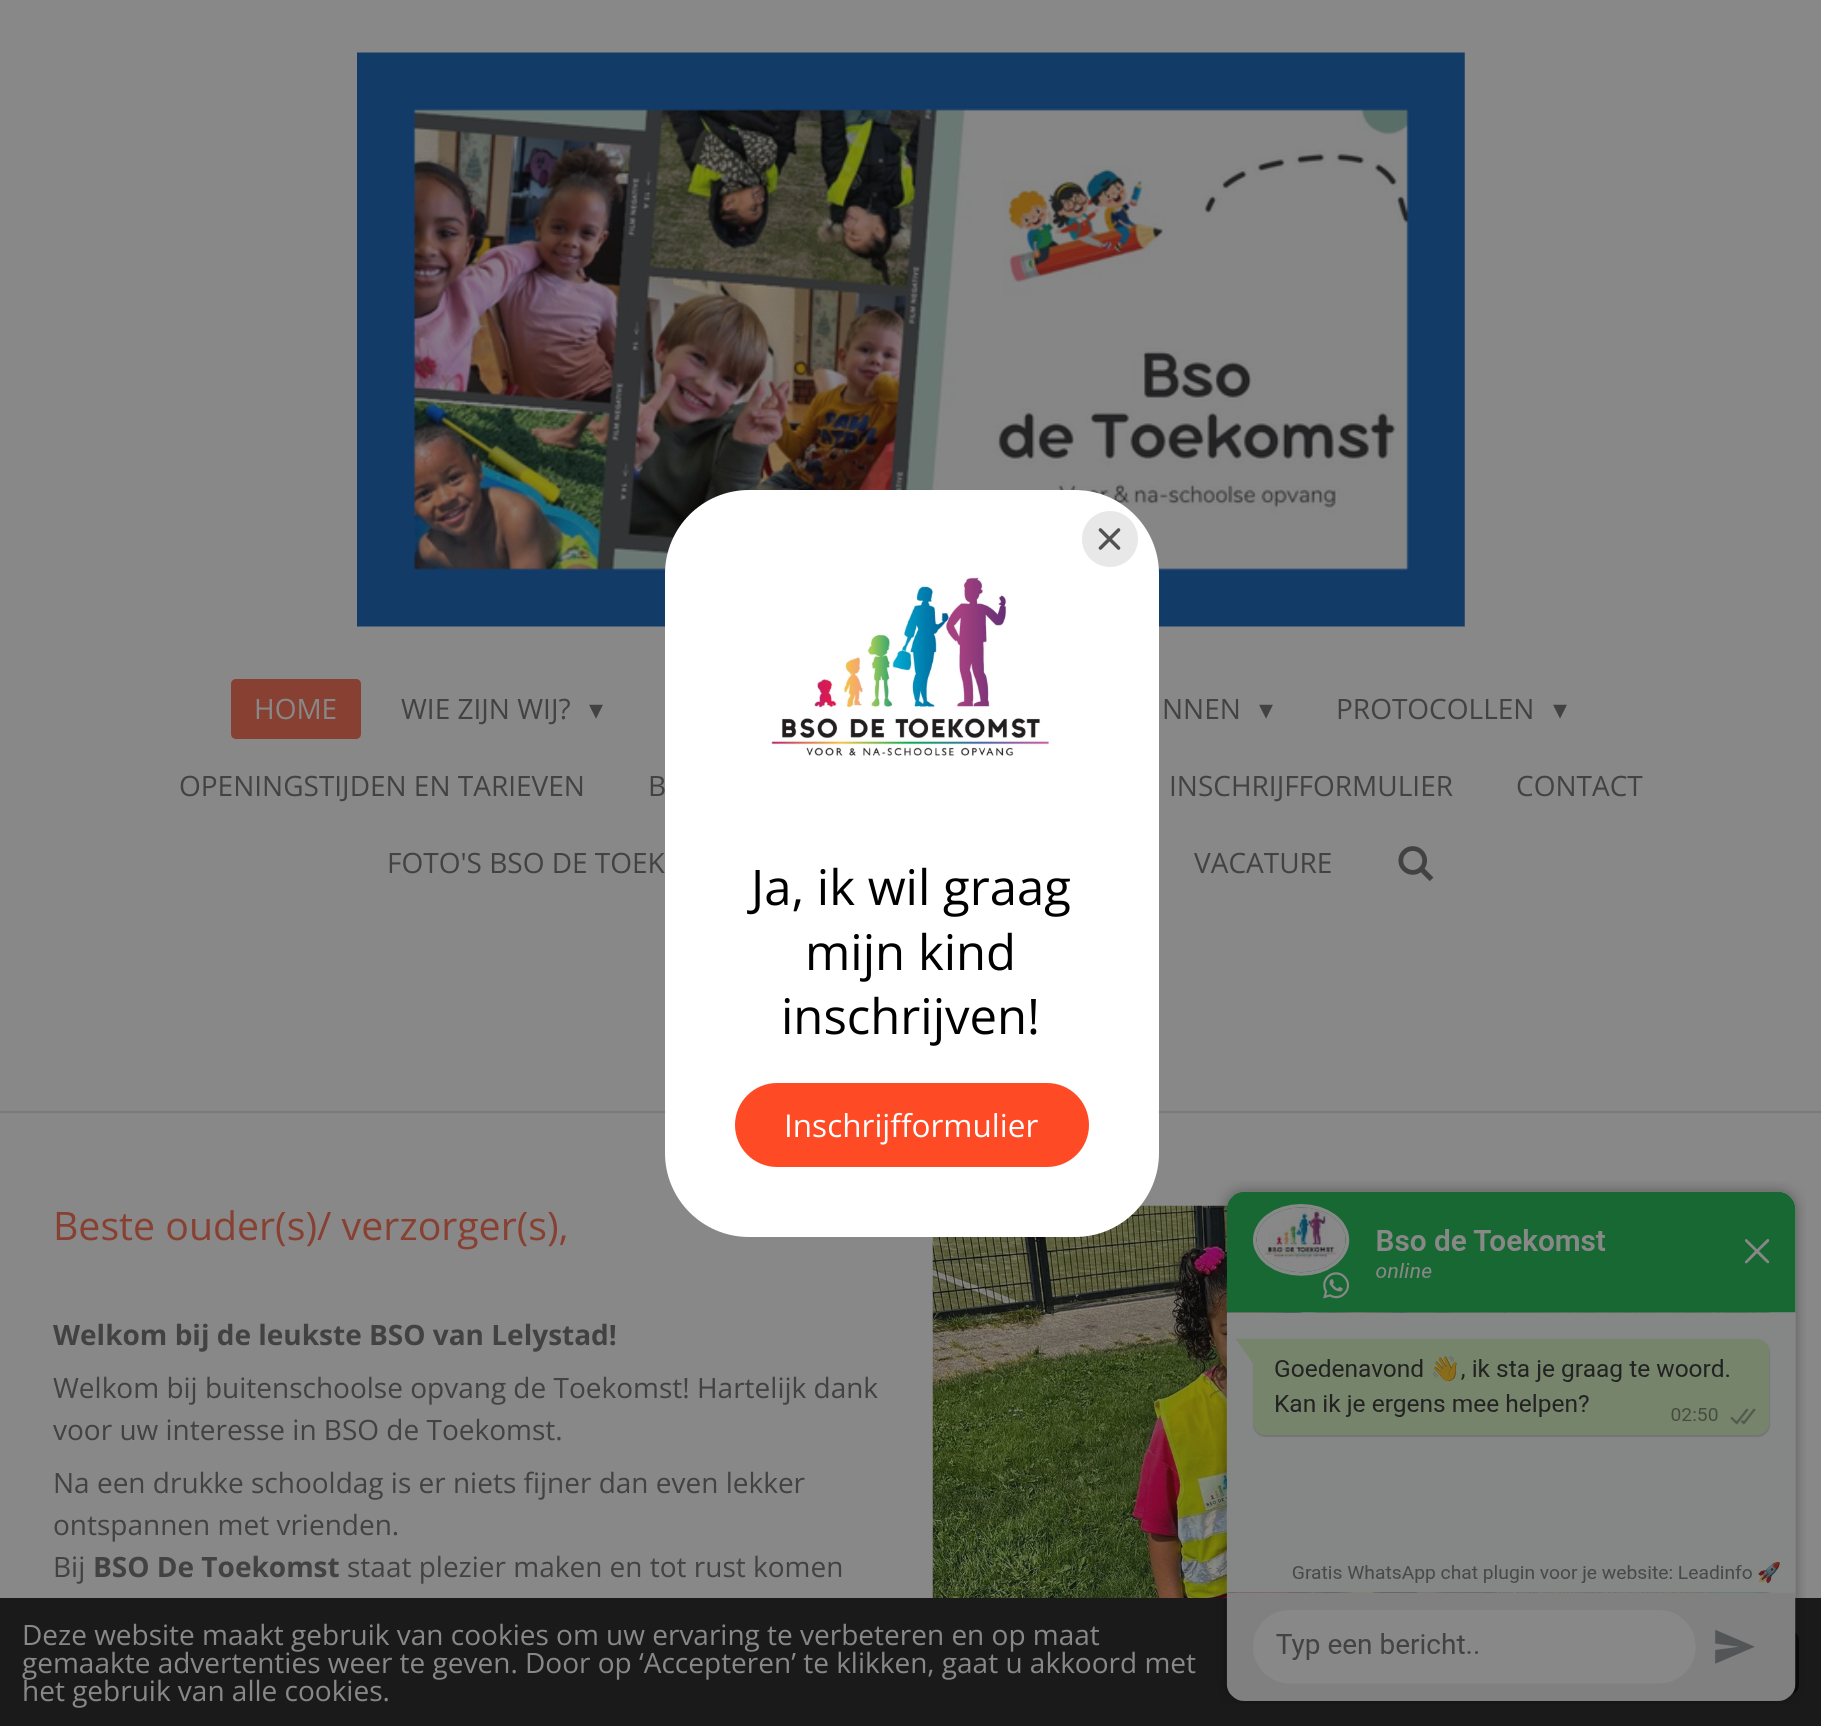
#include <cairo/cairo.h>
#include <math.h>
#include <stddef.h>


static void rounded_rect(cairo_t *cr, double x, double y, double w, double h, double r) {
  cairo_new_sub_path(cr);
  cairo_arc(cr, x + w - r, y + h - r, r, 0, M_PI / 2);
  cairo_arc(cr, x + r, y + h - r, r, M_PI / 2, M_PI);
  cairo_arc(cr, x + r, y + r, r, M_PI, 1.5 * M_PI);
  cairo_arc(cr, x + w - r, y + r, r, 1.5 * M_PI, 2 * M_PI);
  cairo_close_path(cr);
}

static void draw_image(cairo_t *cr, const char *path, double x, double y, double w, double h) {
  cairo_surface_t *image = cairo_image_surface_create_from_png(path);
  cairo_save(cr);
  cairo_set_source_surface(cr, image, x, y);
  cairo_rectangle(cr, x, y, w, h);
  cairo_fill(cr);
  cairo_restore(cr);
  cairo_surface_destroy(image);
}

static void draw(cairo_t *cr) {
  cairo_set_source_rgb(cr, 136 / 255.0, 136 / 255.0, 136 / 255.0);
  cairo_paint(cr);
  draw_image(cr, "images/1.png", 357, 52, 1108, 575);
  cairo_set_source_rgb(cr, 135 / 255.0, 64 / 255.0, 49 / 255.0);
  rounded_rect(cr, 231, 679, 130, 60, 5);
  cairo_fill(cr);
  draw_image(cr, "images/2.png", 1398, 846, 36, 35);
  cairo_set_source_rgb(cr, 122 / 255.0, 122 / 255.0, 122 / 255.0);
  cairo_rectangle(cr, 0, 1111, 1821, 2);
  cairo_fill(cr);
  draw_image(cr, "images/3.png", 932, 1205, 838, 393);
  cairo_set_source_rgb(cr, 1, 1, 1);
  rounded_rect(cr, 665, 490, 494, 747, 84);
  cairo_fill(cr);
  cairo_set_source_rgb(cr, 232 / 255.0, 232 / 255.0, 232 / 255.0);
  cairo_arc(cr, 1110, 539, 28, 0, 2 * M_PI);
  cairo_fill(cr);
  draw_image(cr, "images/4.png", 1098, 528, 23, 22);
  draw_image(cr, "images/5.png", 771, 577, 278, 179);
  cairo_set_source_rgb(cr, 1, 74 / 255.0, 38 / 255.0);
  rounded_rect(cr, 735, 1083, 354, 84, 42);
  cairo_fill(cr);
  cairo_set_source_rgb(cr, 26 / 255.0, 26 / 255.0, 26 / 255.0);
  cairo_rectangle(cr, 0, 1598, 1821, 128);
  cairo_fill(cr);
  rounded_rect(cr, 1521, 1633, 276, 59, 7);
  cairo_set_source_rgb(cr, 9 / 255.0, 9 / 255.0, 9 / 255.0);
  cairo_set_line_width(cr, 4);
  cairo_stroke(cr);
  draw_image(cr, "images/7.png", 1694, 1592, 80, 1);
  draw_image(cr, "images/6.png", 1216, 1181, 590, 523);
  cairo_select_font_face(cr, "Open Sans", CAIRO_FONT_SLANT_NORMAL, CAIRO_FONT_WEIGHT_NORMAL);
  cairo_set_font_size(cr, 28);
  cairo_set_source_rgb(cr, 136 / 255.0, 136 / 255.0, 136 / 255.0);
  cairo_move_to(cr, 254, 719);
  cairo_show_text(cr, "HOME");
  cairo_set_source_rgb(cr, 66 / 255.0, 66 / 255.0, 66 / 255.0);
  cairo_move_to(cr, 401, 719);
  cairo_show_text(cr, "WIE ZIJN WIJ?");
  cairo_select_font_face(cr, "DejaVu Sans", CAIRO_FONT_SLANT_NORMAL, CAIRO_FONT_WEIGHT_NORMAL);
  cairo_move_to(cr, 589, 719);
  cairo_show_text(cr, "▾");
  cairo_select_font_face(cr, "Open Sans", CAIRO_FONT_SLANT_NORMAL, CAIRO_FONT_WEIGHT_NORMAL);
  cairo_move_to(cr, 1162, 719);
  cairo_show_text(cr, "NNEN");
  cairo_select_font_face(cr, "DejaVu Sans", CAIRO_FONT_SLANT_NORMAL, CAIRO_FONT_WEIGHT_NORMAL);
  cairo_move_to(cr, 1259, 719);
  cairo_show_text(cr, "▾");
  cairo_select_font_face(cr, "Open Sans", CAIRO_FONT_SLANT_NORMAL, CAIRO_FONT_WEIGHT_NORMAL);
  cairo_move_to(cr, 1336, 719);
  cairo_show_text(cr, "PROTOCOLLEN");
  cairo_select_font_face(cr, "DejaVu Sans", CAIRO_FONT_SLANT_NORMAL, CAIRO_FONT_WEIGHT_NORMAL);
  cairo_move_to(cr, 1553, 719);
  cairo_show_text(cr, "▾");
  cairo_select_font_face(cr, "Open Sans", CAIRO_FONT_SLANT_NORMAL, CAIRO_FONT_WEIGHT_NORMAL);
  cairo_move_to(cr, 179, 796);
  cairo_show_text(cr, "OPENINGSTIJDEN EN TARIEVEN");
  cairo_move_to(cr, 648, 796);
  cairo_show_text(cr, "B");
  cairo_move_to(cr, 1169, 796);
  cairo_show_text(cr, "INSCHRIJFFORMULIER");
  cairo_move_to(cr, 1516, 796);
  cairo_show_text(cr, "CONTACT");
  cairo_move_to(cr, 387, 873);
  cairo_show_text(cr, "FOTO'S BSO DE TOEK");
  cairo_move_to(cr, 1194, 873);
  cairo_show_text(cr, "VACATURE");
  cairo_set_font_size(cr, 39.25);
  cairo_set_source_rgb(cr, 135 / 255.0, 64 / 255.0, 49 / 255.0);
  cairo_move_to(cr, 53, 1240);
  cairo_show_text(cr, "Beste ouder(s)/ verzorger(s),");
  cairo_select_font_face(cr, "Open Sans", CAIRO_FONT_SLANT_NORMAL, CAIRO_FONT_WEIGHT_BOLD);
  cairo_set_font_size(cr, 28);
  cairo_set_source_rgb(cr, 66 / 255.0, 66 / 255.0, 66 / 255.0);
  cairo_move_to(cr, 53, 1345);
  cairo_show_text(cr, "Welkom bij de leukste BSO van Lelystad!");
  cairo_select_font_face(cr, "Open Sans", CAIRO_FONT_SLANT_NORMAL, CAIRO_FONT_WEIGHT_NORMAL);
  cairo_move_to(cr, 53, 1398);
  cairo_show_text(cr, "Welkom bij buitenschoolse opvang de Toekomst! Hartelijk dank");
  cairo_move_to(cr, 53, 1440);
  cairo_show_text(cr, "voor uw interesse in BSO de Toekomst.");
  cairo_move_to(cr, 53, 1493);
  cairo_show_text(cr, "Na een drukke schooldag is er niets fijner dan even lekker");
  cairo_move_to(cr, 53, 1535);
  cairo_show_text(cr, "ontspannen met vrienden.");
  cairo_move_to(cr, 53, 1577);
  cairo_show_text(cr, "Bij");
  cairo_select_font_face(cr, "Open Sans", CAIRO_FONT_SLANT_NORMAL, CAIRO_FONT_WEIGHT_BOLD);
  cairo_move_to(cr, 93, 1577);
  cairo_show_text(cr, "BSO De Toekomst");
  cairo_select_font_face(cr, "Open Sans", CAIRO_FONT_SLANT_NORMAL, CAIRO_FONT_WEIGHT_NORMAL);
  cairo_move_to(cr, 347, 1577);
  cairo_show_text(cr, "staat plezier maken en tot rust komen");
  cairo_set_font_size(cr, 49);
  cairo_set_source_rgb(cr, 0, 0, 0);
  cairo_move_to(cr, 751, 905);
  cairo_show_text(cr, "Ja, ik wil graag");
  cairo_move_to(cr, 805, 970);
  cairo_show_text(cr, "mijn kind");
  cairo_move_to(cr, 781, 1034);
  cairo_show_text(cr, "inschrijven!");
  cairo_set_font_size(cr, 31.5);
  cairo_set_source_rgb(cr, 1, 1, 1);
  cairo_move_to(cr, 784, 1137);
  cairo_show_text(cr, "Inschrijfformulier");
  cairo_set_font_size(cr, 28);
  cairo_set_source_rgb(cr, 136 / 255.0, 136 / 255.0, 136 / 255.0);
  cairo_move_to(cr, 22, 1645);
  cairo_show_text(cr, "Deze website maakt gebruik van cookies om uw ervaring te verbeteren en op maat");
  cairo_move_to(cr, 22, 1673);
  cairo_show_text(cr, "gemaakte advertenties weer te geven. Door op ‘Accepteren’ te klikken, gaat u akkoord met");
  cairo_move_to(cr, 22, 1701);
  cairo_show_text(cr, "het gebruik van alle cookies.");
}

int main(void) {
  cairo_surface_t *surface = cairo_image_surface_create(CAIRO_FORMAT_RGB24, 1821, 1726);
  cairo_t *cr = cairo_create(surface);
  cairo_font_options_t *options = cairo_font_options_create();
  cairo_font_options_set_hint_metrics(options, CAIRO_HINT_METRICS_OFF);
  cairo_font_options_set_hint_style(options, CAIRO_HINT_STYLE_NONE);
  cairo_set_font_options(cr, options);
  cairo_set_miter_limit(cr, 4);
  draw(cr);
  cairo_surface_write_to_png(surface, "out.png");
  cairo_font_options_destroy(options);
  cairo_destroy(cr);
  cairo_surface_destroy(surface);
  return 0;
}
